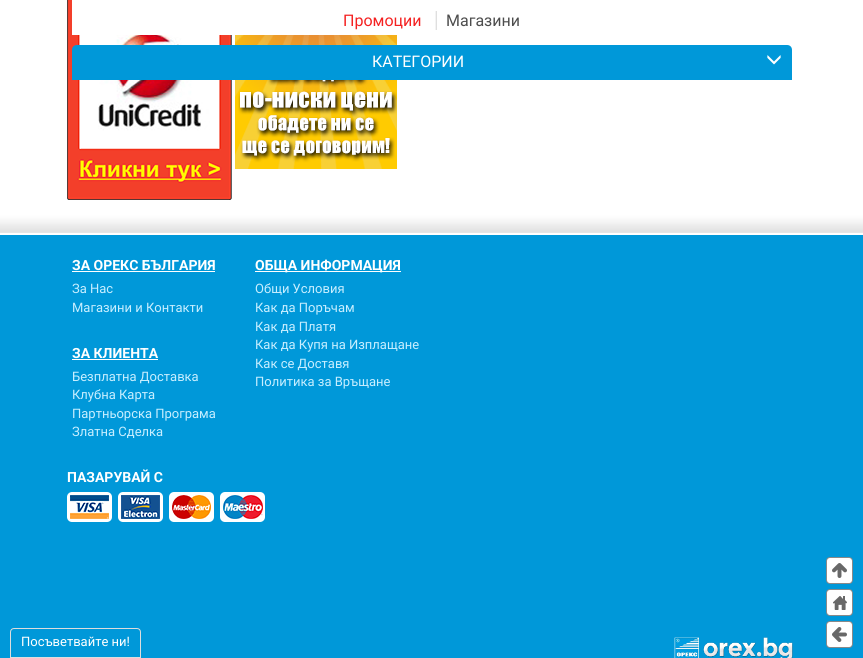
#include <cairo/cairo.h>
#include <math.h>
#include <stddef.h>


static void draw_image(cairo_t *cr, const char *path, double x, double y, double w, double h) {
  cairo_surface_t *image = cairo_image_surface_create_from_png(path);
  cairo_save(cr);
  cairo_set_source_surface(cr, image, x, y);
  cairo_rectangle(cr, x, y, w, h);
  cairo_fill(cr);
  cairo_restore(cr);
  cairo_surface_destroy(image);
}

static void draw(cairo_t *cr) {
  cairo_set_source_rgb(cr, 1, 1, 1);
  cairo_paint(cr);
  draw_image(cr, "images/1.png", 67, 0, 165, 200);
  draw_image(cr, "images/2.png", 235, 35, 162, 134);
  cairo_set_source_rgb(cr, 1, 1, 1);
  cairo_rectangle(cr, 72, 0, 160, 35);
  cairo_fill(cr);
  cairo_set_source_rgb(cr, 223 / 255.0, 223 / 255.0, 223 / 255.0);
  cairo_rectangle(cr, 436, 11, 1, 19);
  cairo_fill(cr);
  cairo_set_source_rgb(cr, 243 / 255.0, 243 / 255.0, 243 / 255.0);
  cairo_rectangle(cr, 435, 11, 1, 19);
  cairo_fill(cr);
  cairo_set_source_rgb(cr, 0, 152 / 255.0, 217 / 255.0);
  cairo_new_path(cr);
  cairo_move_to(cr, 77, 45);
  cairo_line_to(cr, 787, 45);
  cairo_curve_to(cr, 790, 45, 792, 47, 792, 50);
  cairo_line_to(cr, 792, 80);
  cairo_line_to(cr, 72, 80);
  cairo_line_to(cr, 72, 50);
  cairo_curve_to(cr, 72, 47, 74, 45, 77, 45);
  cairo_close_path(cr);
  cairo_fill(cr);
  draw_image(cr, "images/3.png", 767, 55, 14, 10);
  cairo_rectangle(cr, 0, 235, 863, 423);
  cairo_fill(cr);
  draw_image(cr, "images/4.png", 0, 210, 863, 25);
  cairo_set_source_rgb(cr, 1, 1, 1);
  cairo_rectangle(cr, 72, 271, 143, 1);
  cairo_fill(cr);
  cairo_rectangle(cr, 72, 359, 86, 1);
  cairo_fill(cr);
  cairo_rectangle(cr, 255, 271, 146, 1);
  cairo_fill(cr);
  draw_image(cr, "images/5.png", 67, 492, 198, 30);
  draw_image(cr, "images/6.png", 674, 637, 119, 21);
  cairo_new_path(cr);
  cairo_move_to(cr, 14, 628.5);
  cairo_line_to(cr, 137, 628.5);
  cairo_curve_to(cr, 139, 628.5, 140.5, 630, 140.5, 632);
  cairo_line_to(cr, 140.5, 657.5);
  cairo_line_to(cr, 10.5, 657.5);
  cairo_line_to(cr, 10.5, 632);
  cairo_curve_to(cr, 10.5, 630, 12, 628.5, 14, 628.5);
  cairo_close_path(cr);
  cairo_set_source_rgb(cr, 221 / 255.0, 221 / 255.0, 221 / 255.0);
  cairo_set_line_width(cr, 1);
  cairo_stroke(cr);
  draw_image(cr, "images/7.png", 826, 557, 27, 27);
  draw_image(cr, "images/8.png", 826, 589, 27, 27);
  draw_image(cr, "images/9.png", 826, 621, 27, 27);
  cairo_select_font_face(cr, "Roboto", CAIRO_FONT_SLANT_NORMAL, CAIRO_FONT_WEIGHT_NORMAL);
  cairo_set_font_size(cr, 16);
  cairo_set_source_rgb(cr, 244 / 255.0, 33 / 255.0, 33 / 255.0);
  cairo_move_to(cr, 343, 26);
  cairo_show_text(cr, "Промоции");
  cairo_set_source_rgb(cr, 77 / 255.0, 77 / 255.0, 77 / 255.0);
  cairo_move_to(cr, 446, 26);
  cairo_show_text(cr, "Магазини");
  cairo_set_source_rgb(cr, 1, 1, 1);
  cairo_move_to(cr, 372, 67);
  cairo_show_text(cr, "КАТЕГОРИИ");
  cairo_select_font_face(cr, "Roboto", CAIRO_FONT_SLANT_NORMAL, CAIRO_FONT_WEIGHT_BOLD);
  cairo_set_font_size(cr, 14);
  cairo_move_to(cr, 72, 270);
  cairo_show_text(cr, "ЗА ОРЕКС БЪЛГАРИЯ");
  cairo_select_font_face(cr, "Roboto", CAIRO_FONT_SLANT_NORMAL, CAIRO_FONT_WEIGHT_NORMAL);
  cairo_set_font_size(cr, 13);
  cairo_set_source_rgb(cr, 199 / 255.0, 238 / 255.0, 1);
  cairo_move_to(cr, 72, 293);
  cairo_show_text(cr, "За Нас");
  cairo_move_to(cr, 72, 312);
  cairo_show_text(cr, "Магазини и Контакти");
  cairo_select_font_face(cr, "Roboto", CAIRO_FONT_SLANT_NORMAL, CAIRO_FONT_WEIGHT_BOLD);
  cairo_set_font_size(cr, 14);
  cairo_set_source_rgb(cr, 1, 1, 1);
  cairo_move_to(cr, 72, 358);
  cairo_show_text(cr, "ЗА КЛИЕНТА");
  cairo_select_font_face(cr, "Roboto", CAIRO_FONT_SLANT_NORMAL, CAIRO_FONT_WEIGHT_NORMAL);
  cairo_set_font_size(cr, 13);
  cairo_set_source_rgb(cr, 199 / 255.0, 238 / 255.0, 1);
  cairo_move_to(cr, 72, 381);
  cairo_show_text(cr, "Безплатна Доставка");
  cairo_move_to(cr, 72, 399);
  cairo_show_text(cr, "Клубна Карта");
  cairo_move_to(cr, 72, 418);
  cairo_show_text(cr, "Партньорска Програма");
  cairo_move_to(cr, 72, 436);
  cairo_show_text(cr, "Златна Сделка");
  cairo_select_font_face(cr, "Roboto", CAIRO_FONT_SLANT_NORMAL, CAIRO_FONT_WEIGHT_BOLD);
  cairo_set_font_size(cr, 14);
  cairo_set_source_rgb(cr, 1, 1, 1);
  cairo_move_to(cr, 255, 270);
  cairo_show_text(cr, "ОБЩА ИНФОРМАЦИЯ");
  cairo_select_font_face(cr, "Roboto", CAIRO_FONT_SLANT_NORMAL, CAIRO_FONT_WEIGHT_NORMAL);
  cairo_set_font_size(cr, 13);
  cairo_set_source_rgb(cr, 199 / 255.0, 238 / 255.0, 1);
  cairo_move_to(cr, 255, 293);
  cairo_show_text(cr, "Общи Условия");
  cairo_move_to(cr, 255, 312);
  cairo_show_text(cr, "Как да Поръчам");
  cairo_move_to(cr, 255, 331);
  cairo_show_text(cr, "Как да Платя");
  cairo_move_to(cr, 255, 349);
  cairo_show_text(cr, "Как да Купя на Изплащане");
  cairo_move_to(cr, 255, 368);
  cairo_show_text(cr, "Как се Доставя");
  cairo_move_to(cr, 255, 386);
  cairo_show_text(cr, "Политика за Връщане");
  cairo_select_font_face(cr, "Roboto", CAIRO_FONT_SLANT_NORMAL, CAIRO_FONT_WEIGHT_BOLD);
  cairo_set_font_size(cr, 14);
  cairo_set_source_rgb(cr, 1, 1, 1);
  cairo_move_to(cr, 67, 482);
  cairo_show_text(cr, "ПАЗАРУВАЙ С");
  cairo_select_font_face(cr, "Roboto", CAIRO_FONT_SLANT_NORMAL, CAIRO_FONT_WEIGHT_NORMAL);
  cairo_set_font_size(cr, 13);
  cairo_move_to(cr, 21, 646);
  cairo_show_text(cr, "Посъветвайте ни!");
}

int main(void) {
  cairo_surface_t *surface = cairo_image_surface_create(CAIRO_FORMAT_RGB24, 863, 658);
  cairo_t *cr = cairo_create(surface);
  cairo_font_options_t *options = cairo_font_options_create();
  cairo_font_options_set_hint_metrics(options, CAIRO_HINT_METRICS_OFF);
  cairo_font_options_set_hint_style(options, CAIRO_HINT_STYLE_NONE);
  cairo_set_font_options(cr, options);
  cairo_set_miter_limit(cr, 4);
  draw(cr);
  cairo_surface_write_to_png(surface, "out.png");
  cairo_font_options_destroy(options);
  cairo_destroy(cr);
  cairo_surface_destroy(surface);
  return 0;
}
